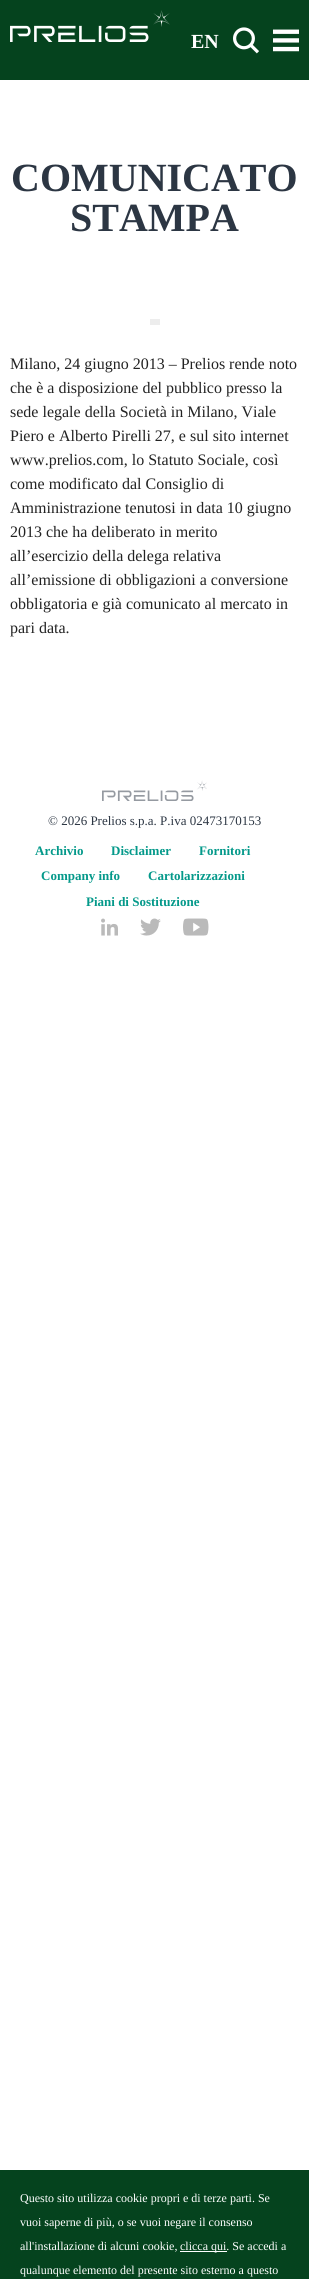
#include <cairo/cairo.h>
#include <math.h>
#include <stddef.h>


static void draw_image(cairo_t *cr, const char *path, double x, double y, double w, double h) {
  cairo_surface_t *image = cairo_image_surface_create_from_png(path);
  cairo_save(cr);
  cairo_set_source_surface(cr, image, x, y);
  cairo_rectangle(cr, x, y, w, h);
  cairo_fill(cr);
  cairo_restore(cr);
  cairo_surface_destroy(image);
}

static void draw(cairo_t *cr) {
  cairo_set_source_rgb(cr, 1, 1, 1);
  cairo_paint(cr);
  cairo_set_source_rgb(cr, 5 / 255.0, 67 / 255.0, 30 / 255.0);
  cairo_rectangle(cr, 0, 0, 309, 80);
  cairo_fill(cr);
  draw_image(cr, "images/1.png", 10, 10, 160, 32);
  draw_image(cr, "images/2.png", 233, 27, 26, 27);
  draw_image(cr, "images/3.png", 273, 29, 26, 23);
  cairo_set_source_rgb(cr, 237 / 255.0, 237 / 255.0, 237 / 255.0);
  cairo_rectangle(cr, 150, 319, 10, 6);
  cairo_fill(cr);
  draw_image(cr, "images/4.png", 102, 780, 105, 21);
  draw_image(cr, "images/5.png", 101, 918, 17, 18);
  draw_image(cr, "images/6.png", 140, 918, 21, 18);
  draw_image(cr, "images/7.png", 183, 918, 26, 18);
  cairo_set_source_rgb(cr, 5 / 255.0, 67 / 255.0, 30 / 255.0);
  cairo_rectangle(cr, 0, 2170, 309, 109);
  cairo_fill(cr);
  cairo_set_source_rgb(cr, 1, 1, 1);
  cairo_rectangle(cr, 180, 2251, 47, 1);
  cairo_fill(cr);
  cairo_select_font_face(cr, "Liberation Serif", CAIRO_FONT_SLANT_NORMAL, CAIRO_FONT_WEIGHT_BOLD);
  cairo_set_font_size(cr, 20);
  cairo_move_to(cr, 191, 48);
  cairo_show_text(cr, "EN");
  cairo_set_font_size(cr, 40);
  cairo_set_source_rgb(cr, 44 / 255.0, 54 / 255.0, 67 / 255.0);
  cairo_move_to(cr, 11, 191);
  cairo_show_text(cr, "COMUNICATO");
  cairo_move_to(cr, 70, 231);
  cairo_show_text(cr, "STAMPA");
  cairo_select_font_face(cr, "Liberation Serif", CAIRO_FONT_SLANT_NORMAL, CAIRO_FONT_WEIGHT_NORMAL);
  cairo_set_font_size(cr, 16);
  cairo_set_source_rgb(cr, 34 / 255.0, 34 / 255.0, 34 / 255.0);
  cairo_move_to(cr, 10, 369);
  cairo_show_text(cr, "Milano, 24 giugno 2013 – Prelios rende noto");
  cairo_move_to(cr, 10, 393);
  cairo_show_text(cr, "che è a disposizione del pubblico presso la");
  cairo_move_to(cr, 10, 417);
  cairo_show_text(cr, "sede legale della Società in Milano, Viale");
  cairo_move_to(cr, 10, 441);
  cairo_show_text(cr, "Piero e Alberto Pirelli 27, e sul sito internet");
  cairo_move_to(cr, 10, 465);
  cairo_show_text(cr, "www.prelios.com, lo Statuto Sociale, così");
  cairo_move_to(cr, 10, 489);
  cairo_show_text(cr, "come modificato dal Consiglio di");
  cairo_move_to(cr, 10, 513);
  cairo_show_text(cr, "Amministrazione tenutosi in data 10 giugno");
  cairo_move_to(cr, 10, 537);
  cairo_show_text(cr, "2013 che ha deliberato in merito");
  cairo_move_to(cr, 10, 561);
  cairo_show_text(cr, "all’esercizio della delega relativa");
  cairo_move_to(cr, 10, 585);
  cairo_show_text(cr, "all’emissione di obbligazioni a conversione");
  cairo_move_to(cr, 10, 609);
  cairo_show_text(cr, "obbligatoria e già comunicato al mercato in");
  cairo_move_to(cr, 10, 633);
  cairo_show_text(cr, "pari data.");
  cairo_set_font_size(cr, 13);
  cairo_set_source_rgb(cr, 44 / 255.0, 54 / 255.0, 67 / 255.0);
  cairo_move_to(cr, 48, 825);
  cairo_show_text(cr, "© 2026 Prelios s.p.a. P.iva 02473170153");
  cairo_select_font_face(cr, "Liberation Serif", CAIRO_FONT_SLANT_NORMAL, CAIRO_FONT_WEIGHT_BOLD);
  cairo_set_source_rgb(cr, 4 / 255.0, 153 / 255.0, 138 / 255.0);
  cairo_move_to(cr, 35, 855);
  cairo_show_text(cr, "Archivio");
  cairo_move_to(cr, 111, 855);
  cairo_show_text(cr, "Disclaimer");
  cairo_move_to(cr, 199, 855);
  cairo_show_text(cr, "Fornitori");
  cairo_move_to(cr, 41, 880);
  cairo_show_text(cr, "Company info");
  cairo_move_to(cr, 148, 880);
  cairo_show_text(cr, "Cartolarizzazioni");
  cairo_move_to(cr, 86, 906);
  cairo_show_text(cr, "Piani di Sostituzione");
  cairo_select_font_face(cr, "Liberation Serif", CAIRO_FONT_SLANT_NORMAL, CAIRO_FONT_WEIGHT_NORMAL);
  cairo_set_font_size(cr, 12);
  cairo_set_source_rgb(cr, 1, 1, 1);
  cairo_move_to(cr, 20, 2202);
  cairo_show_text(cr, "Questo sito utilizza cookie propri e di terze parti. Se");
  cairo_move_to(cr, 20, 2226);
  cairo_show_text(cr, "vuoi saperne di più, o se vuoi negare il consenso");
  cairo_move_to(cr, 20, 2250);
  cairo_show_text(cr, "all'installazione di alcuni cookie,");
  cairo_move_to(cr, 180, 2250);
  cairo_show_text(cr, "clicca qui. Se accedi a");
  cairo_move_to(cr, 20, 2274);
  cairo_show_text(cr, "qualunque elemento del presente sito esterno a questo");
}

int main(void) {
  cairo_surface_t *surface = cairo_image_surface_create(CAIRO_FORMAT_RGB24, 309, 2279);
  cairo_t *cr = cairo_create(surface);
  cairo_font_options_t *options = cairo_font_options_create();
  cairo_font_options_set_hint_metrics(options, CAIRO_HINT_METRICS_OFF);
  cairo_font_options_set_hint_style(options, CAIRO_HINT_STYLE_NONE);
  cairo_set_font_options(cr, options);
  cairo_set_miter_limit(cr, 4);
  draw(cr);
  cairo_surface_write_to_png(surface, "out.png");
  cairo_font_options_destroy(options);
  cairo_destroy(cr);
  cairo_surface_destroy(surface);
  return 0;
}
